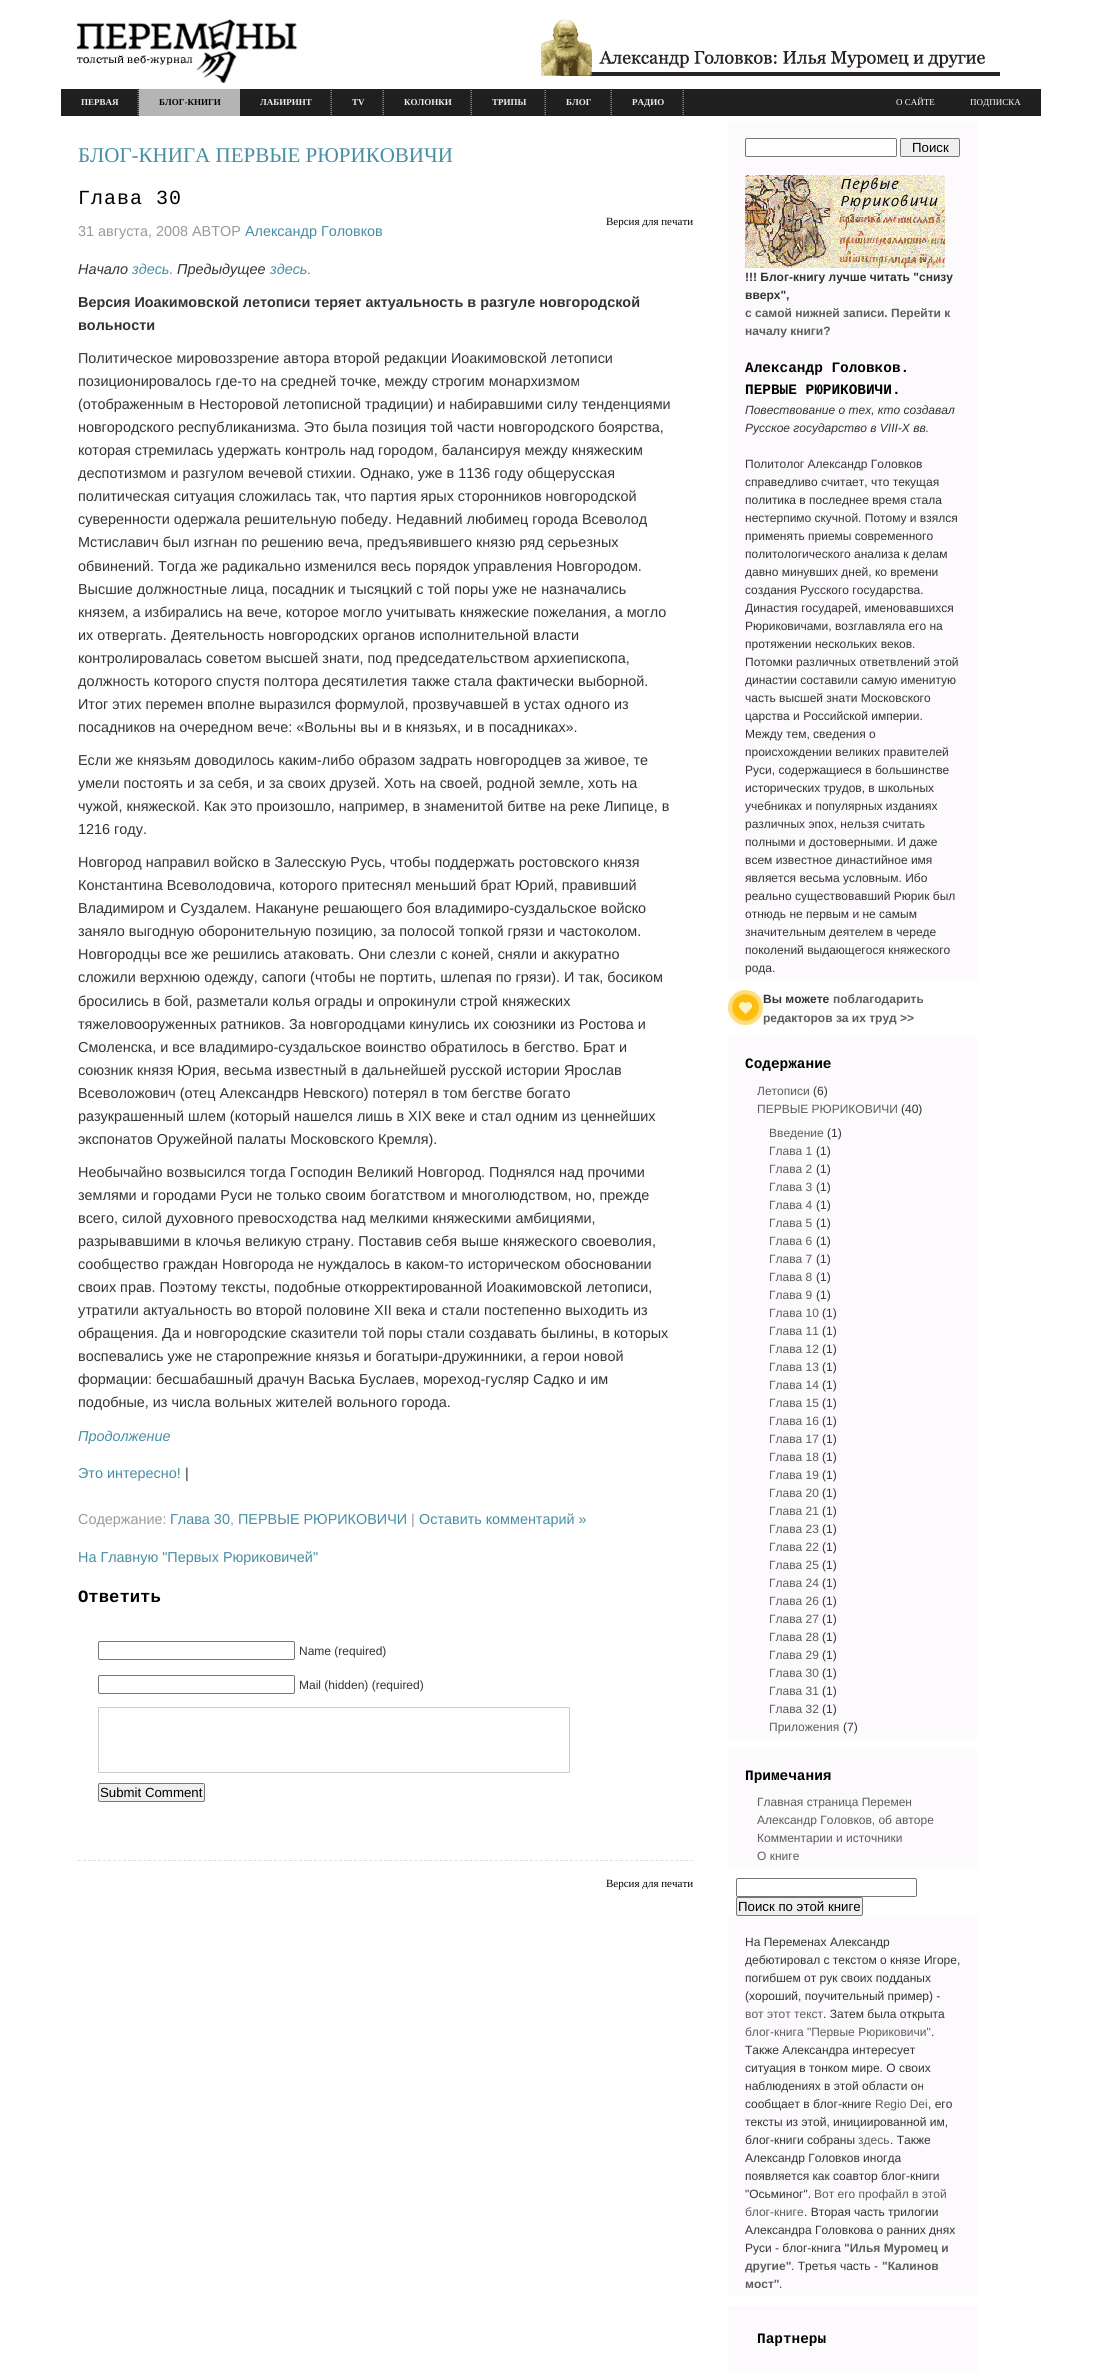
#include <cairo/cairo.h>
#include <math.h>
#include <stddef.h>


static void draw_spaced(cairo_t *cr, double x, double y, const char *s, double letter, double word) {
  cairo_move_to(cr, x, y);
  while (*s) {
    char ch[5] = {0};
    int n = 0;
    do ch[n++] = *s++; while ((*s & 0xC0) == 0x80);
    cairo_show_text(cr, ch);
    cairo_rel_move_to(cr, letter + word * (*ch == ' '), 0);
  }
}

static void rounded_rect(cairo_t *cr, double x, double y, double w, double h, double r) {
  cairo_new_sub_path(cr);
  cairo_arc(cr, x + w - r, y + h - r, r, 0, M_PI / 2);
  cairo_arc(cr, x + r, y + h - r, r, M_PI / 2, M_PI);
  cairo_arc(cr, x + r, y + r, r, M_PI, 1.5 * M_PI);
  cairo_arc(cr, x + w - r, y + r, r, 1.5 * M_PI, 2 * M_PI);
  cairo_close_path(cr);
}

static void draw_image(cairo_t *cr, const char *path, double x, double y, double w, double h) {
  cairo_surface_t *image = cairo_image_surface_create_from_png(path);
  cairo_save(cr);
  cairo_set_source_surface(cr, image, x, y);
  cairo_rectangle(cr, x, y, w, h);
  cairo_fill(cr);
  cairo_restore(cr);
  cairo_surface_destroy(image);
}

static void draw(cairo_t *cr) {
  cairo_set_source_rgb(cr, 1, 1, 1);
  cairo_paint(cr);
  draw_image(cr, "images/1.png", 77, 19, 221, 64);
  draw_image(cr, "images/2.png", 541, 19, 459, 57);
  cairo_set_source_rgb(cr, 32 / 255.0, 31 / 255.0, 31 / 255.0);
  cairo_rectangle(cr, 61, 89, 980, 27);
  cairo_fill(cr);
  draw_image(cr, "images/3.png", 137, 90, 2, 25);
  cairo_set_source_rgb(cr, 180 / 255.0, 180 / 255.0, 180 / 255.0);
  cairo_rectangle(cr, 139, 89, 101, 27);
  cairo_fill(cr);
  draw_image(cr, "images/3.png", 330, 90, 2, 25);
  draw_image(cr, "images/3.png", 382, 90, 2, 25);
  draw_image(cr, "images/3.png", 470, 90, 2, 25);
  draw_image(cr, "images/3.png", 544, 90, 2, 25);
  draw_image(cr, "images/3.png", 610, 90, 2, 25);
  draw_image(cr, "images/3.png", 682, 90, 2, 25);
  cairo_new_path(cr);
  cairo_move_to(cr, 78, 1860.5);
  cairo_line_to(cr, 693, 1860.5);
  cairo_set_source_rgb(cr, 221 / 255.0, 221 / 255.0, 221 / 255.0);
  cairo_set_line_width(cr, 1);
  cairo_set_dash(cr, (double[]){3, 2.02}, 2, 0);
  cairo_stroke(cr);
  rounded_rect(cr, 98.5, 1641.5, 196, 18, 1.5);
  cairo_set_source_rgb(cr, 118 / 255.0, 118 / 255.0, 118 / 255.0);
  cairo_set_dash(cr, NULL, 0, 0);
  cairo_stroke(cr);
  rounded_rect(cr, 98.5, 1675.5, 196, 18, 1.5);
  cairo_stroke(cr);
  cairo_rectangle(cr, 98.5, 1707.5, 471, 65);
  cairo_set_source_rgb(cr, 204 / 255.0, 204 / 255.0, 204 / 255.0);
  cairo_stroke(cr);
  cairo_set_source_rgb(cr, 239 / 255.0, 239 / 255.0, 239 / 255.0);
  rounded_rect(cr, 98.5, 1783.5, 106, 18, 1.5);
  cairo_fill_preserve(cr);
  cairo_set_source_rgb(cr, 118 / 255.0, 118 / 255.0, 118 / 255.0);
  cairo_stroke(cr);
  cairo_set_source_rgb(cr, 252 / 255.0, 250 / 255.0, 252 / 255.0);
  cairo_rectangle(cr, 728, 121, 250, 859);
  cairo_fill(cr);
  cairo_set_source_rgb(cr, 1, 1, 1);
  rounded_rect(cr, 745.5, 138.5, 151, 18, 1.5);
  cairo_fill_preserve(cr);
  cairo_set_source_rgb(cr, 118 / 255.0, 118 / 255.0, 118 / 255.0);
  cairo_stroke(cr);
  cairo_set_source_rgb(cr, 239 / 255.0, 239 / 255.0, 239 / 255.0);
  rounded_rect(cr, 900.5, 138.5, 59, 18, 1.5);
  cairo_fill_preserve(cr);
  cairo_set_source_rgb(cr, 118 / 255.0, 118 / 255.0, 118 / 255.0);
  cairo_stroke(cr);
  draw_image(cr, "images/4.png", 745, 175, 200, 93);
  draw_image(cr, "images/5.png", 728, 990, 35, 35);
  cairo_set_source_rgb(cr, 252 / 255.0, 250 / 255.0, 252 / 255.0);
  cairo_rectangle(cr, 728, 1037, 250, 702);
  cairo_fill(cr);
  cairo_rectangle(cr, 728, 1749, 250, 119);
  cairo_fill(cr);
  rounded_rect(cr, 736.5, 1878.5, 180, 18, 1.5);
  cairo_set_source_rgb(cr, 118 / 255.0, 118 / 255.0, 118 / 255.0);
  cairo_stroke(cr);
  cairo_set_source_rgb(cr, 239 / 255.0, 239 / 255.0, 239 / 255.0);
  rounded_rect(cr, 736.5, 1897.5, 126, 18, 1.5);
  cairo_fill_preserve(cr);
  cairo_set_source_rgb(cr, 118 / 255.0, 118 / 255.0, 118 / 255.0);
  cairo_stroke(cr);
  cairo_set_source_rgb(cr, 252 / 255.0, 250 / 255.0, 252 / 255.0);
  cairo_rectangle(cr, 728, 1916, 250, 380);
  cairo_fill(cr);
  cairo_rectangle(cr, 728, 2306, 250, 66);
  cairo_fill(cr);
  cairo_select_font_face(cr, "Liberation Serif", CAIRO_FONT_SLANT_NORMAL, CAIRO_FONT_WEIGHT_BOLD);
  cairo_set_font_size(cr, 9);
  cairo_set_source_rgb(cr, 239 / 255.0, 239 / 255.0, 239 / 255.0);
  cairo_move_to(cr, 81, 105);
  cairo_show_text(cr, "ПЕРВАЯ");
  cairo_set_source_rgb(cr, 0, 0, 0);
  cairo_move_to(cr, 159, 105);
  cairo_show_text(cr, "БЛОГ-КНИГИ");
  cairo_set_source_rgb(cr, 239 / 255.0, 239 / 255.0, 239 / 255.0);
  cairo_move_to(cr, 260, 105);
  cairo_show_text(cr, "ЛАБИРИНТ");
  cairo_move_to(cr, 352, 105);
  cairo_show_text(cr, "TV");
  cairo_move_to(cr, 404, 105);
  cairo_show_text(cr, "КОЛОНКИ");
  cairo_move_to(cr, 492, 105);
  cairo_show_text(cr, "ТРИПЫ");
  cairo_move_to(cr, 566, 105);
  cairo_show_text(cr, "БЛОГ");
  cairo_move_to(cr, 632, 105);
  cairo_show_text(cr, "РАДИО");
  cairo_select_font_face(cr, "Liberation Serif", CAIRO_FONT_SLANT_NORMAL, CAIRO_FONT_WEIGHT_NORMAL);
  cairo_set_source_rgb(cr, 1, 1, 1);
  cairo_move_to(cr, 896, 105);
  cairo_show_text(cr, "О САЙТЕ");
  cairo_move_to(cr, 970, 105);
  cairo_show_text(cr, "ПОДПИСКА");
  cairo_set_font_size(cr, 21);
  cairo_set_source_rgb(cr, 72 / 255.0, 142 / 255.0, 163 / 255.0);
  cairo_move_to(cr, 78, 162);
  cairo_show_text(cr, "БЛОГ-КНИГА ПЕРВЫЕ РЮРИКОВИЧИ");
  cairo_select_font_face(cr, "Liberation Mono", CAIRO_FONT_SLANT_NORMAL, CAIRO_FONT_WEIGHT_NORMAL);
  cairo_set_font_size(cr, 20);
  cairo_set_source_rgb(cr, 0, 0, 0);
  draw_spaced(cr, 78, 204, "Глава 30", 1, 0);
  cairo_select_font_face(cr, "Liberation Serif", CAIRO_FONT_SLANT_NORMAL, CAIRO_FONT_WEIGHT_NORMAL);
  cairo_set_font_size(cr, 11);
  cairo_move_to(cr, 606, 225);
  cairo_show_text(cr, "Версия для печати");
  cairo_select_font_face(cr, "Liberation Sans", CAIRO_FONT_SLANT_NORMAL, CAIRO_FONT_WEIGHT_NORMAL);
  cairo_set_font_size(cr, 14.4);
  cairo_set_source_rgb(cr, 153 / 255.0, 153 / 255.0, 153 / 255.0);
  cairo_move_to(cr, 78, 236);
  cairo_show_text(cr, "31 августа, 2008 АВТОР");
  cairo_set_source_rgb(cr, 72 / 255.0, 142 / 255.0, 163 / 255.0);
  cairo_move_to(cr, 245, 236);
  cairo_show_text(cr, "Александр Головков");
  cairo_select_font_face(cr, "Liberation Sans", CAIRO_FONT_SLANT_ITALIC, CAIRO_FONT_WEIGHT_NORMAL);
  cairo_set_source_rgb(cr, 51 / 255.0, 51 / 255.0, 51 / 255.0);
  cairo_move_to(cr, 78, 274);
  cairo_show_text(cr, "Начало");
  cairo_set_source_rgb(cr, 72 / 255.0, 142 / 255.0, 163 / 255.0);
  cairo_move_to(cr, 132, 274);
  cairo_show_text(cr, "здесь.");
  cairo_set_source_rgb(cr, 51 / 255.0, 51 / 255.0, 51 / 255.0);
  cairo_move_to(cr, 177, 274);
  cairo_show_text(cr, "Предыдущее");
  cairo_set_source_rgb(cr, 72 / 255.0, 142 / 255.0, 163 / 255.0);
  cairo_move_to(cr, 270, 274);
  cairo_show_text(cr, "здесь.");
  cairo_select_font_face(cr, "Liberation Sans", CAIRO_FONT_SLANT_NORMAL, CAIRO_FONT_WEIGHT_BOLD);
  cairo_set_source_rgb(cr, 51 / 255.0, 51 / 255.0, 51 / 255.0);
  cairo_move_to(cr, 78, 307);
  cairo_show_text(cr, "Версия Иоакимовской летописи теряет актуальность в разгуле новгородской");
  cairo_move_to(cr, 78, 330);
  cairo_show_text(cr, "вольности");
  cairo_select_font_face(cr, "Liberation Sans", CAIRO_FONT_SLANT_NORMAL, CAIRO_FONT_WEIGHT_NORMAL);
  cairo_move_to(cr, 78, 363);
  cairo_show_text(cr, "Политическое мировоззрение автора второй редакции Иоакимовской летописи");
  cairo_move_to(cr, 78, 386);
  cairo_show_text(cr, "позиционировалось где-то на средней точке, между строгим монархизмом");
  cairo_move_to(cr, 78, 409);
  cairo_show_text(cr, "(отображенным в Несторовой летописной традиции) и набиравшими силу тенденциями");
  cairo_move_to(cr, 78, 432);
  cairo_show_text(cr, "новгородского республиканизма. Это была позиция той части новгородского боярства,");
  cairo_move_to(cr, 78, 455);
  cairo_show_text(cr, "которая стремилась удержать контроль над городом, балансируя между княжеским");
  cairo_move_to(cr, 78, 478);
  cairo_show_text(cr, "деспотизмом и разгулом вечевой стихии. Однако, уже в 1136 году общерусская");
  cairo_move_to(cr, 78, 501);
  cairo_show_text(cr, "политическая ситуация сложилась так, что партия ярых сторонников новгородской");
  cairo_move_to(cr, 78, 524);
  cairo_show_text(cr, "суверенности одержала решительную победу. Недавний любимец города Всеволод");
  cairo_move_to(cr, 78, 547);
  cairo_show_text(cr, "Мстиславич был изгнан по решению веча, предъявившего князю ряд серьезных");
  cairo_move_to(cr, 78, 571);
  cairo_show_text(cr, "обвинений. Тогда же радикально изменился весь порядок управления Новгородом.");
  cairo_move_to(cr, 78, 594);
  cairo_show_text(cr, "Высшие должностные лица, посадник и тысяцкий с той поры уже не назначались");
  cairo_move_to(cr, 78, 617);
  cairo_show_text(cr, "князем, а избирались на вече, которое могло учитывать княжеские пожелания, а могло");
  cairo_move_to(cr, 78, 640);
  cairo_show_text(cr, "их отвергать. Деятельность новгородских органов исполнительной власти");
  cairo_move_to(cr, 78, 663);
  cairo_show_text(cr, "контролировалась советом высшей знати, под председательством архиепископа,");
  cairo_move_to(cr, 78, 686);
  cairo_show_text(cr, "должность которого спустя полтора десятилетия также стала фактически выборной.");
  cairo_move_to(cr, 78, 709);
  cairo_show_text(cr, "Итог этих перемен вполне выразился формулой, прозвучавшей в устах одного из");
  cairo_move_to(cr, 78, 732);
  cairo_show_text(cr, "посадников на очередном вече: «Вольны вы и в князьях, и в посадниках».");
  cairo_move_to(cr, 78, 765);
  cairo_show_text(cr, "Если же князьям доводилось каким-либо образом задрать новгородцев за живое, те");
  cairo_move_to(cr, 78, 788);
  cairo_show_text(cr, "умели постоять и за себя, и за своих друзей. Хоть на своей, родной земле, хоть на");
  cairo_move_to(cr, 78, 811);
  cairo_show_text(cr, "чужой, княжеской. Как это произошло, например, в знаменитой битве на реке Липице, в");
  cairo_move_to(cr, 78, 834);
  cairo_show_text(cr, "1216 году.");
  cairo_move_to(cr, 78, 867);
  cairo_show_text(cr, "Новгород направил войско в Залесскую Русь, чтобы поддержать ростовского князя");
  cairo_move_to(cr, 78, 890);
  cairo_show_text(cr, "Константина Всеволодовича, которого притеснял меньший брат Юрий, правивший");
  cairo_move_to(cr, 78, 913);
  cairo_show_text(cr, "Владимиром и Суздалем. Накануне решающего боя владимиро-суздальское войско");
  cairo_move_to(cr, 78, 936);
  cairo_show_text(cr, "заняло выгодную оборонительную позицию, за полосой топкой грязи и частоколом.");
  cairo_move_to(cr, 78, 959);
  cairo_show_text(cr, "Новгородцы все же решились атаковать. Они слезли с коней, сняли и аккуратно");
  cairo_move_to(cr, 78, 982);
  cairo_show_text(cr, "сложили верхнюю одежду, сапоги (чтобы не портить, шлепая по грязи). И так, босиком");
  cairo_move_to(cr, 78, 1006);
  cairo_show_text(cr, "бросились в бой, разметали колья ограды и опрокинули строй княжеских");
  cairo_move_to(cr, 78, 1029);
  cairo_show_text(cr, "тяжеловооруженных ратников. За новгородцами кинулись их союзники из Ростова и");
  cairo_move_to(cr, 78, 1052);
  cairo_show_text(cr, "Смоленска, и все владимиро-суздальское воинство обратилось в бегство. Брат и");
  cairo_move_to(cr, 78, 1075);
  cairo_show_text(cr, "союзник князя Юрия, весьма известный в дальнейшей русской истории Ярослав");
  cairo_move_to(cr, 78, 1098);
  cairo_show_text(cr, "Всеволожович (отец Александрв Невского) потерял в том бегстве богато");
  cairo_move_to(cr, 78, 1121);
  cairo_show_text(cr, "разукрашенный шлем (который нашелся лишь в XIX веке и стал одним из ценнейших");
  cairo_move_to(cr, 78, 1144);
  cairo_show_text(cr, "экспонатов Оружейной палаты Московского Кремля).");
  cairo_move_to(cr, 78, 1177);
  cairo_show_text(cr, "Необычайно возвысился тогда Господин Великий Новгород. Поднялся над прочими");
  cairo_move_to(cr, 78, 1200);
  cairo_show_text(cr, "землями и городами Руси не только своим богатством и многолюдством, но, прежде");
  cairo_move_to(cr, 78, 1223);
  cairo_show_text(cr, "всего, силой духовного превосходства над мелкими княжескими амбициями,");
  cairo_move_to(cr, 78, 1246);
  cairo_show_text(cr, "разрывавшими в клочья великую страну. Поставив себя выше княжеского своеволия,");
  cairo_move_to(cr, 78, 1269);
  cairo_show_text(cr, "сообщество граждан Новгорода не нуждалось в каком-то историческом обосновании");
  cairo_move_to(cr, 78, 1292);
  cairo_show_text(cr, "своих прав. Поэтому тексты, подобные откорректированной Иоакимовской летописи,");
  cairo_move_to(cr, 78, 1315);
  cairo_show_text(cr, "утратили актуальность во второй половине XII века и стали постепенно выходить из");
  cairo_move_to(cr, 78, 1338);
  cairo_show_text(cr, "обращения. Да и новгородские сказители той поры стали создавать былины, в которых");
  cairo_move_to(cr, 78, 1361);
  cairo_show_text(cr, "воспевались уже не старопрежние князья и богатыри-дружинники, а герои новой");
  cairo_move_to(cr, 78, 1384);
  cairo_show_text(cr, "формации: бесшабашный драчун Васька Буслаев, мореход-гусляр Садко и им");
  cairo_move_to(cr, 78, 1407);
  cairo_show_text(cr, "подобные, из числа вольных жителей вольного города.");
  cairo_select_font_face(cr, "Liberation Sans", CAIRO_FONT_SLANT_ITALIC, CAIRO_FONT_WEIGHT_NORMAL);
  cairo_set_source_rgb(cr, 72 / 255.0, 142 / 255.0, 163 / 255.0);
  cairo_move_to(cr, 78, 1441);
  cairo_show_text(cr, "Продолжение");
  cairo_select_font_face(cr, "Liberation Sans", CAIRO_FONT_SLANT_NORMAL, CAIRO_FONT_WEIGHT_NORMAL);
  cairo_move_to(cr, 78, 1478);
  cairo_show_text(cr, "Это интересно!");
  cairo_set_source_rgb(cr, 51 / 255.0, 51 / 255.0, 51 / 255.0);
  cairo_move_to(cr, 185, 1478);
  cairo_show_text(cr, "|");
  cairo_set_source_rgb(cr, 153 / 255.0, 153 / 255.0, 153 / 255.0);
  cairo_move_to(cr, 78, 1524);
  cairo_show_text(cr, "Содержание:");
  cairo_set_source_rgb(cr, 72 / 255.0, 142 / 255.0, 163 / 255.0);
  cairo_move_to(cr, 170, 1524);
  cairo_show_text(cr, "Глава 30");
  cairo_set_source_rgb(cr, 153 / 255.0, 153 / 255.0, 153 / 255.0);
  cairo_move_to(cr, 230, 1524);
  cairo_show_text(cr, ",");
  cairo_set_source_rgb(cr, 72 / 255.0, 142 / 255.0, 163 / 255.0);
  cairo_move_to(cr, 238, 1524);
  cairo_show_text(cr, "ПЕРВЫЕ РЮРИКОВИЧИ");
  cairo_set_source_rgb(cr, 153 / 255.0, 153 / 255.0, 153 / 255.0);
  cairo_move_to(cr, 411, 1524);
  cairo_show_text(cr, "|");
  cairo_set_source_rgb(cr, 72 / 255.0, 142 / 255.0, 163 / 255.0);
  cairo_move_to(cr, 419, 1524);
  cairo_show_text(cr, "Оставить комментарий »");
  cairo_move_to(cr, 78, 1562);
  cairo_show_text(cr, "На Главную \"Первых Рюриковичей\"");
  cairo_select_font_face(cr, "Liberation Mono", CAIRO_FONT_SLANT_NORMAL, CAIRO_FONT_WEIGHT_BOLD);
  cairo_set_font_size(cr, 17.25);
  cairo_set_source_rgb(cr, 0, 0, 0);
  cairo_move_to(cr, 78, 1602);
  cairo_show_text(cr, "Ответить");
  cairo_select_font_face(cr, "Liberation Sans", CAIRO_FONT_SLANT_NORMAL, CAIRO_FONT_WEIGHT_NORMAL);
  cairo_set_font_size(cr, 12);
  cairo_set_source_rgb(cr, 51 / 255.0, 51 / 255.0, 51 / 255.0);
  cairo_move_to(cr, 299, 1655);
  cairo_show_text(cr, "Name (required)");
  cairo_move_to(cr, 299, 1689);
  cairo_show_text(cr, "Mail (hidden) (required)");
  cairo_set_font_size(cr, 13.25);
  cairo_set_source_rgb(cr, 0, 0, 0);
  cairo_move_to(cr, 100, 1797);
  cairo_show_text(cr, "Submit Comment");
  cairo_select_font_face(cr, "Liberation Serif", CAIRO_FONT_SLANT_NORMAL, CAIRO_FONT_WEIGHT_NORMAL);
  cairo_set_font_size(cr, 11);
  cairo_move_to(cr, 606, 1887);
  cairo_show_text(cr, "Версия для печати");
  cairo_select_font_face(cr, "Liberation Sans", CAIRO_FONT_SLANT_NORMAL, CAIRO_FONT_WEIGHT_NORMAL);
  cairo_set_font_size(cr, 13.25);
  cairo_move_to(cr, 912, 152);
  cairo_show_text(cr, "Поиск");
  cairo_select_font_face(cr, "Liberation Sans", CAIRO_FONT_SLANT_NORMAL, CAIRO_FONT_WEIGHT_BOLD);
  cairo_set_font_size(cr, 12);
  cairo_set_source_rgb(cr, 51 / 255.0, 51 / 255.0, 51 / 255.0);
  cairo_move_to(cr, 745, 281);
  cairo_show_text(cr, "!!! Блог-книгу лучше читать \"снизу");
  cairo_move_to(cr, 745, 299);
  cairo_show_text(cr, "вверх\",");
  cairo_set_source_rgb(cr, 93 / 255.0, 93 / 255.0, 93 / 255.0);
  cairo_move_to(cr, 745, 317);
  cairo_show_text(cr, "с самой нижней записи. Перейти к");
  cairo_move_to(cr, 745, 335);
  cairo_show_text(cr, "началу книги?");
  cairo_select_font_face(cr, "Liberation Mono", CAIRO_FONT_SLANT_NORMAL, CAIRO_FONT_WEIGHT_BOLD);
  cairo_set_font_size(cr, 14.4);
  cairo_set_source_rgb(cr, 0, 0, 0);
  cairo_move_to(cr, 745, 372);
  cairo_show_text(cr, "Александр Головков.");
  cairo_move_to(cr, 745, 394);
  cairo_show_text(cr, "ПЕРВЫЕ РЮРИКОВИЧИ.");
  cairo_select_font_face(cr, "Liberation Sans", CAIRO_FONT_SLANT_ITALIC, CAIRO_FONT_WEIGHT_NORMAL);
  cairo_set_font_size(cr, 12);
  cairo_set_source_rgb(cr, 51 / 255.0, 51 / 255.0, 51 / 255.0);
  cairo_move_to(cr, 745, 414);
  cairo_show_text(cr, "Повествование о тех, кто создавал");
  cairo_move_to(cr, 745, 432);
  cairo_show_text(cr, "Русское государство в VIII-X вв.");
  cairo_select_font_face(cr, "Liberation Sans", CAIRO_FONT_SLANT_NORMAL, CAIRO_FONT_WEIGHT_NORMAL);
  cairo_move_to(cr, 745, 468);
  cairo_show_text(cr, "Политолог Александр Головков");
  cairo_move_to(cr, 745, 486);
  cairo_show_text(cr, "справедливо считает, что текущая");
  cairo_move_to(cr, 745, 504);
  cairo_show_text(cr, "политика в последнее время стала");
  cairo_move_to(cr, 745, 522);
  cairo_show_text(cr, "нестерпимо скучной. Потому и взялся");
  cairo_move_to(cr, 745, 540);
  cairo_show_text(cr, "применять приемы современного");
  cairo_move_to(cr, 745, 558);
  cairo_show_text(cr, "политологического анализа к делам");
  cairo_move_to(cr, 745, 576);
  cairo_show_text(cr, "давно минувших дней, ко времени");
  cairo_move_to(cr, 745, 594);
  cairo_show_text(cr, "создания Русского государства.");
  cairo_move_to(cr, 745, 612);
  cairo_show_text(cr, "Династия государей, именовавшихся");
  cairo_move_to(cr, 745, 630);
  cairo_show_text(cr, "Рюриковичами, возглавляла его на");
  cairo_move_to(cr, 745, 648);
  cairo_show_text(cr, "протяжении нескольких веков.");
  cairo_move_to(cr, 745, 666);
  cairo_show_text(cr, "Потомки различных ответвлений этой");
  cairo_move_to(cr, 745, 684);
  cairo_show_text(cr, "династии составили самую именитую");
  cairo_move_to(cr, 745, 702);
  cairo_show_text(cr, "часть высшей знати Московского");
  cairo_move_to(cr, 745, 720);
  cairo_show_text(cr, "царства и Российской империи.");
  cairo_move_to(cr, 745, 738);
  cairo_show_text(cr, "Между тем, сведения о");
  cairo_move_to(cr, 745, 756);
  cairo_show_text(cr, "происхождении великих правителей");
  cairo_move_to(cr, 745, 774);
  cairo_show_text(cr, "Руси, содержащиеся в большинстве");
  cairo_move_to(cr, 745, 792);
  cairo_show_text(cr, "исторических трудов, в школьных");
  cairo_move_to(cr, 745, 810);
  cairo_show_text(cr, "учебниках и популярных изданиях");
  cairo_move_to(cr, 745, 828);
  cairo_show_text(cr, "различных эпох, нельзя считать");
  cairo_move_to(cr, 745, 846);
  cairo_show_text(cr, "полными и достоверными. И даже");
  cairo_move_to(cr, 745, 864);
  cairo_show_text(cr, "всем известное династийное имя");
  cairo_move_to(cr, 745, 882);
  cairo_show_text(cr, "является весьма условным. Ибо");
  cairo_move_to(cr, 745, 900);
  cairo_show_text(cr, "реально существовавший Рюрик был");
  cairo_move_to(cr, 745, 918);
  cairo_show_text(cr, "отнюдь не первым и не самым");
  cairo_move_to(cr, 745, 936);
  cairo_show_text(cr, "значительным деятелем в череде");
  cairo_move_to(cr, 745, 954);
  cairo_show_text(cr, "поколений выдающегося княжеского");
  cairo_move_to(cr, 745, 972);
  cairo_show_text(cr, "рода.");
  cairo_select_font_face(cr, "Liberation Sans", CAIRO_FONT_SLANT_NORMAL, CAIRO_FONT_WEIGHT_BOLD);
  cairo_move_to(cr, 763, 1003);
  cairo_show_text(cr, "Вы можете");
  cairo_set_source_rgb(cr, 93 / 255.0, 93 / 255.0, 93 / 255.0);
  cairo_move_to(cr, 833, 1003);
  cairo_show_text(cr, "поблагодарить");
  cairo_move_to(cr, 763, 1022);
  cairo_show_text(cr, "редакторов за их труд >>");
  cairo_select_font_face(cr, "Liberation Mono", CAIRO_FONT_SLANT_NORMAL, CAIRO_FONT_WEIGHT_BOLD);
  cairo_set_font_size(cr, 14.4);
  cairo_set_source_rgb(cr, 0, 0, 0);
  cairo_move_to(cr, 745, 1068);
  cairo_show_text(cr, "Содержание");
  cairo_select_font_face(cr, "Liberation Sans", CAIRO_FONT_SLANT_NORMAL, CAIRO_FONT_WEIGHT_NORMAL);
  cairo_set_font_size(cr, 12);
  cairo_set_source_rgb(cr, 93 / 255.0, 93 / 255.0, 93 / 255.0);
  cairo_move_to(cr, 757, 1095);
  cairo_show_text(cr, "Летописи");
  cairo_set_source_rgb(cr, 51 / 255.0, 51 / 255.0, 51 / 255.0);
  cairo_move_to(cr, 813, 1095);
  cairo_show_text(cr, "(6)");
  cairo_set_source_rgb(cr, 93 / 255.0, 93 / 255.0, 93 / 255.0);
  cairo_move_to(cr, 757, 1113);
  cairo_show_text(cr, "ПЕРВЫЕ РЮРИКОВИЧИ");
  cairo_set_source_rgb(cr, 51 / 255.0, 51 / 255.0, 51 / 255.0);
  cairo_move_to(cr, 901, 1113);
  cairo_show_text(cr, "(40)");
  cairo_set_source_rgb(cr, 93 / 255.0, 93 / 255.0, 93 / 255.0);
  cairo_move_to(cr, 769, 1137);
  cairo_show_text(cr, "Введение");
  cairo_set_source_rgb(cr, 51 / 255.0, 51 / 255.0, 51 / 255.0);
  cairo_move_to(cr, 827, 1137);
  cairo_show_text(cr, "(1)");
  cairo_set_source_rgb(cr, 93 / 255.0, 93 / 255.0, 93 / 255.0);
  cairo_move_to(cr, 769, 1155);
  cairo_show_text(cr, "Глава 1");
  cairo_set_source_rgb(cr, 51 / 255.0, 51 / 255.0, 51 / 255.0);
  cairo_move_to(cr, 816, 1155);
  cairo_show_text(cr, "(1)");
  cairo_set_source_rgb(cr, 93 / 255.0, 93 / 255.0, 93 / 255.0);
  cairo_move_to(cr, 769, 1173);
  cairo_show_text(cr, "Глава 2");
  cairo_set_source_rgb(cr, 51 / 255.0, 51 / 255.0, 51 / 255.0);
  cairo_move_to(cr, 816, 1173);
  cairo_show_text(cr, "(1)");
  cairo_set_source_rgb(cr, 93 / 255.0, 93 / 255.0, 93 / 255.0);
  cairo_move_to(cr, 769, 1191);
  cairo_show_text(cr, "Глава 3");
  cairo_set_source_rgb(cr, 51 / 255.0, 51 / 255.0, 51 / 255.0);
  cairo_move_to(cr, 816, 1191);
  cairo_show_text(cr, "(1)");
  cairo_set_source_rgb(cr, 93 / 255.0, 93 / 255.0, 93 / 255.0);
  cairo_move_to(cr, 769, 1209);
  cairo_show_text(cr, "Глава 4");
  cairo_set_source_rgb(cr, 51 / 255.0, 51 / 255.0, 51 / 255.0);
  cairo_move_to(cr, 816, 1209);
  cairo_show_text(cr, "(1)");
  cairo_set_source_rgb(cr, 93 / 255.0, 93 / 255.0, 93 / 255.0);
  cairo_move_to(cr, 769, 1227);
  cairo_show_text(cr, "Глава 5");
  cairo_set_source_rgb(cr, 51 / 255.0, 51 / 255.0, 51 / 255.0);
  cairo_move_to(cr, 816, 1227);
  cairo_show_text(cr, "(1)");
  cairo_set_source_rgb(cr, 93 / 255.0, 93 / 255.0, 93 / 255.0);
  cairo_move_to(cr, 769, 1245);
  cairo_show_text(cr, "Глава 6");
  cairo_set_source_rgb(cr, 51 / 255.0, 51 / 255.0, 51 / 255.0);
  cairo_move_to(cr, 816, 1245);
  cairo_show_text(cr, "(1)");
  cairo_set_source_rgb(cr, 93 / 255.0, 93 / 255.0, 93 / 255.0);
  cairo_move_to(cr, 769, 1263);
  cairo_show_text(cr, "Глава 7");
  cairo_set_source_rgb(cr, 51 / 255.0, 51 / 255.0, 51 / 255.0);
  cairo_move_to(cr, 816, 1263);
  cairo_show_text(cr, "(1)");
  cairo_set_source_rgb(cr, 93 / 255.0, 93 / 255.0, 93 / 255.0);
  cairo_move_to(cr, 769, 1281);
  cairo_show_text(cr, "Глава 8");
  cairo_set_source_rgb(cr, 51 / 255.0, 51 / 255.0, 51 / 255.0);
  cairo_move_to(cr, 816, 1281);
  cairo_show_text(cr, "(1)");
  cairo_set_source_rgb(cr, 93 / 255.0, 93 / 255.0, 93 / 255.0);
  cairo_move_to(cr, 769, 1299);
  cairo_show_text(cr, "Глава 9");
  cairo_set_source_rgb(cr, 51 / 255.0, 51 / 255.0, 51 / 255.0);
  cairo_move_to(cr, 816, 1299);
  cairo_show_text(cr, "(1)");
  cairo_set_source_rgb(cr, 93 / 255.0, 93 / 255.0, 93 / 255.0);
  cairo_move_to(cr, 769, 1317);
  cairo_show_text(cr, "Глава 10");
  cairo_set_source_rgb(cr, 51 / 255.0, 51 / 255.0, 51 / 255.0);
  cairo_move_to(cr, 822, 1317);
  cairo_show_text(cr, "(1)");
  cairo_set_source_rgb(cr, 93 / 255.0, 93 / 255.0, 93 / 255.0);
  cairo_move_to(cr, 769, 1335);
  cairo_show_text(cr, "Глава 11");
  cairo_set_source_rgb(cr, 51 / 255.0, 51 / 255.0, 51 / 255.0);
  cairo_move_to(cr, 822, 1335);
  cairo_show_text(cr, "(1)");
  cairo_set_source_rgb(cr, 93 / 255.0, 93 / 255.0, 93 / 255.0);
  cairo_move_to(cr, 769, 1353);
  cairo_show_text(cr, "Глава 12");
  cairo_set_source_rgb(cr, 51 / 255.0, 51 / 255.0, 51 / 255.0);
  cairo_move_to(cr, 822, 1353);
  cairo_show_text(cr, "(1)");
  cairo_set_source_rgb(cr, 93 / 255.0, 93 / 255.0, 93 / 255.0);
  cairo_move_to(cr, 769, 1371);
  cairo_show_text(cr, "Глава 13");
  cairo_set_source_rgb(cr, 51 / 255.0, 51 / 255.0, 51 / 255.0);
  cairo_move_to(cr, 822, 1371);
  cairo_show_text(cr, "(1)");
  cairo_set_source_rgb(cr, 93 / 255.0, 93 / 255.0, 93 / 255.0);
  cairo_move_to(cr, 769, 1389);
  cairo_show_text(cr, "Глава 14");
  cairo_set_source_rgb(cr, 51 / 255.0, 51 / 255.0, 51 / 255.0);
  cairo_move_to(cr, 822, 1389);
  cairo_show_text(cr, "(1)");
  cairo_set_source_rgb(cr, 93 / 255.0, 93 / 255.0, 93 / 255.0);
  cairo_move_to(cr, 769, 1407);
  cairo_show_text(cr, "Глава 15");
  cairo_set_source_rgb(cr, 51 / 255.0, 51 / 255.0, 51 / 255.0);
  cairo_move_to(cr, 822, 1407);
  cairo_show_text(cr, "(1)");
  cairo_set_source_rgb(cr, 93 / 255.0, 93 / 255.0, 93 / 255.0);
  cairo_move_to(cr, 769, 1425);
  cairo_show_text(cr, "Глава 16");
  cairo_set_source_rgb(cr, 51 / 255.0, 51 / 255.0, 51 / 255.0);
  cairo_move_to(cr, 822, 1425);
  cairo_show_text(cr, "(1)");
  cairo_set_source_rgb(cr, 93 / 255.0, 93 / 255.0, 93 / 255.0);
  cairo_move_to(cr, 769, 1443);
  cairo_show_text(cr, "Глава 17");
  cairo_set_source_rgb(cr, 51 / 255.0, 51 / 255.0, 51 / 255.0);
  cairo_move_to(cr, 822, 1443);
  cairo_show_text(cr, "(1)");
  cairo_set_source_rgb(cr, 93 / 255.0, 93 / 255.0, 93 / 255.0);
  cairo_move_to(cr, 769, 1461);
  cairo_show_text(cr, "Глава 18");
  cairo_set_source_rgb(cr, 51 / 255.0, 51 / 255.0, 51 / 255.0);
  cairo_move_to(cr, 822, 1461);
  cairo_show_text(cr, "(1)");
  cairo_set_source_rgb(cr, 93 / 255.0, 93 / 255.0, 93 / 255.0);
  cairo_move_to(cr, 769, 1479);
  cairo_show_text(cr, "Глава 19");
  cairo_set_source_rgb(cr, 51 / 255.0, 51 / 255.0, 51 / 255.0);
  cairo_move_to(cr, 822, 1479);
  cairo_show_text(cr, "(1)");
  cairo_set_source_rgb(cr, 93 / 255.0, 93 / 255.0, 93 / 255.0);
  cairo_move_to(cr, 769, 1497);
  cairo_show_text(cr, "Глава 20");
  cairo_set_source_rgb(cr, 51 / 255.0, 51 / 255.0, 51 / 255.0);
  cairo_move_to(cr, 822, 1497);
  cairo_show_text(cr, "(1)");
  cairo_set_source_rgb(cr, 93 / 255.0, 93 / 255.0, 93 / 255.0);
  cairo_move_to(cr, 769, 1515);
  cairo_show_text(cr, "Глава 21");
  cairo_set_source_rgb(cr, 51 / 255.0, 51 / 255.0, 51 / 255.0);
  cairo_move_to(cr, 822, 1515);
  cairo_show_text(cr, "(1)");
  cairo_set_source_rgb(cr, 93 / 255.0, 93 / 255.0, 93 / 255.0);
  cairo_move_to(cr, 769, 1533);
  cairo_show_text(cr, "Глава 23");
  cairo_set_source_rgb(cr, 51 / 255.0, 51 / 255.0, 51 / 255.0);
  cairo_move_to(cr, 822, 1533);
  cairo_show_text(cr, "(1)");
  cairo_set_source_rgb(cr, 93 / 255.0, 93 / 255.0, 93 / 255.0);
  cairo_move_to(cr, 769, 1551);
  cairo_show_text(cr, "Глава 22");
  cairo_set_source_rgb(cr, 51 / 255.0, 51 / 255.0, 51 / 255.0);
  cairo_move_to(cr, 822, 1551);
  cairo_show_text(cr, "(1)");
  cairo_set_source_rgb(cr, 93 / 255.0, 93 / 255.0, 93 / 255.0);
  cairo_move_to(cr, 769, 1569);
  cairo_show_text(cr, "Глава 25");
  cairo_set_source_rgb(cr, 51 / 255.0, 51 / 255.0, 51 / 255.0);
  cairo_move_to(cr, 822, 1569);
  cairo_show_text(cr, "(1)");
  cairo_set_source_rgb(cr, 93 / 255.0, 93 / 255.0, 93 / 255.0);
  cairo_move_to(cr, 769, 1587);
  cairo_show_text(cr, "Глава 24");
  cairo_set_source_rgb(cr, 51 / 255.0, 51 / 255.0, 51 / 255.0);
  cairo_move_to(cr, 822, 1587);
  cairo_show_text(cr, "(1)");
  cairo_set_source_rgb(cr, 93 / 255.0, 93 / 255.0, 93 / 255.0);
  cairo_move_to(cr, 769, 1605);
  cairo_show_text(cr, "Глава 26");
  cairo_set_source_rgb(cr, 51 / 255.0, 51 / 255.0, 51 / 255.0);
  cairo_move_to(cr, 822, 1605);
  cairo_show_text(cr, "(1)");
  cairo_set_source_rgb(cr, 93 / 255.0, 93 / 255.0, 93 / 255.0);
  cairo_move_to(cr, 769, 1623);
  cairo_show_text(cr, "Глава 27");
  cairo_set_source_rgb(cr, 51 / 255.0, 51 / 255.0, 51 / 255.0);
  cairo_move_to(cr, 822, 1623);
  cairo_show_text(cr, "(1)");
  cairo_set_source_rgb(cr, 93 / 255.0, 93 / 255.0, 93 / 255.0);
  cairo_move_to(cr, 769, 1641);
  cairo_show_text(cr, "Глава 28");
  cairo_set_source_rgb(cr, 51 / 255.0, 51 / 255.0, 51 / 255.0);
  cairo_move_to(cr, 822, 1641);
  cairo_show_text(cr, "(1)");
  cairo_set_source_rgb(cr, 93 / 255.0, 93 / 255.0, 93 / 255.0);
  cairo_move_to(cr, 769, 1659);
  cairo_show_text(cr, "Глава 29");
  cairo_set_source_rgb(cr, 51 / 255.0, 51 / 255.0, 51 / 255.0);
  cairo_move_to(cr, 822, 1659);
  cairo_show_text(cr, "(1)");
  cairo_set_source_rgb(cr, 93 / 255.0, 93 / 255.0, 93 / 255.0);
  cairo_move_to(cr, 769, 1677);
  cairo_show_text(cr, "Глава 30");
  cairo_set_source_rgb(cr, 51 / 255.0, 51 / 255.0, 51 / 255.0);
  cairo_move_to(cr, 822, 1677);
  cairo_show_text(cr, "(1)");
  cairo_set_source_rgb(cr, 93 / 255.0, 93 / 255.0, 93 / 255.0);
  cairo_move_to(cr, 769, 1695);
  cairo_show_text(cr, "Глава 31");
  cairo_set_source_rgb(cr, 51 / 255.0, 51 / 255.0, 51 / 255.0);
  cairo_move_to(cr, 822, 1695);
  cairo_show_text(cr, "(1)");
  cairo_set_source_rgb(cr, 93 / 255.0, 93 / 255.0, 93 / 255.0);
  cairo_move_to(cr, 769, 1713);
  cairo_show_text(cr, "Глава 32");
  cairo_set_source_rgb(cr, 51 / 255.0, 51 / 255.0, 51 / 255.0);
  cairo_move_to(cr, 822, 1713);
  cairo_show_text(cr, "(1)");
  cairo_set_source_rgb(cr, 93 / 255.0, 93 / 255.0, 93 / 255.0);
  cairo_move_to(cr, 769, 1731);
  cairo_show_text(cr, "Приложения");
  cairo_set_source_rgb(cr, 51 / 255.0, 51 / 255.0, 51 / 255.0);
  cairo_move_to(cr, 843, 1731);
  cairo_show_text(cr, "(7)");
  cairo_select_font_face(cr, "Liberation Mono", CAIRO_FONT_SLANT_NORMAL, CAIRO_FONT_WEIGHT_BOLD);
  cairo_set_font_size(cr, 14.4);
  cairo_set_source_rgb(cr, 0, 0, 0);
  cairo_move_to(cr, 745, 1780);
  cairo_show_text(cr, "Примечания");
  cairo_select_font_face(cr, "Liberation Sans", CAIRO_FONT_SLANT_NORMAL, CAIRO_FONT_WEIGHT_NORMAL);
  cairo_set_font_size(cr, 12);
  cairo_set_source_rgb(cr, 93 / 255.0, 93 / 255.0, 93 / 255.0);
  cairo_move_to(cr, 757, 1806);
  cairo_show_text(cr, "Главная страница Перемен");
  cairo_move_to(cr, 757, 1824);
  cairo_show_text(cr, "Александр Головков, об авторе");
  cairo_move_to(cr, 757, 1842);
  cairo_show_text(cr, "Комментарии и источники");
  cairo_move_to(cr, 757, 1860);
  cairo_show_text(cr, "О книге");
  cairo_set_font_size(cr, 13.25);
  cairo_set_source_rgb(cr, 0, 0, 0);
  cairo_move_to(cr, 738, 1911);
  cairo_show_text(cr, "Поиск по этой книге");
  cairo_set_font_size(cr, 12);
  cairo_set_source_rgb(cr, 51 / 255.0, 51 / 255.0, 51 / 255.0);
  cairo_move_to(cr, 745, 1946);
  cairo_show_text(cr, "На Переменах Александр");
  cairo_move_to(cr, 745, 1964);
  cairo_show_text(cr, "дебютировал с текстом о князе Игоре,");
  cairo_move_to(cr, 745, 1982);
  cairo_show_text(cr, "погибшем от рук своих подданых");
  cairo_move_to(cr, 745, 2000);
  cairo_show_text(cr, "(хороший, поучительный пример) -");
  cairo_set_source_rgb(cr, 93 / 255.0, 93 / 255.0, 93 / 255.0);
  cairo_move_to(cr, 745, 2018);
  cairo_show_text(cr, "вот этот текст");
  cairo_set_source_rgb(cr, 51 / 255.0, 51 / 255.0, 51 / 255.0);
  cairo_move_to(cr, 823, 2018);
  cairo_show_text(cr, ". Затем была открыта");
  cairo_set_source_rgb(cr, 93 / 255.0, 93 / 255.0, 93 / 255.0);
  cairo_move_to(cr, 745, 2036);
  cairo_show_text(cr, "блог-книга \"Первые Рюриковичи\"");
  cairo_set_source_rgb(cr, 51 / 255.0, 51 / 255.0, 51 / 255.0);
  cairo_move_to(cr, 931, 2036);
  cairo_show_text(cr, ".");
  cairo_move_to(cr, 745, 2054);
  cairo_show_text(cr, "Также Александра интересует");
  cairo_move_to(cr, 745, 2072);
  cairo_show_text(cr, "ситуация в тонком мире. О своих");
  cairo_move_to(cr, 745, 2090);
  cairo_show_text(cr, "наблюдениях в этой области он");
  cairo_move_to(cr, 745, 2108);
  cairo_show_text(cr, "сообщает в блог-книге");
  cairo_set_source_rgb(cr, 93 / 255.0, 93 / 255.0, 93 / 255.0);
  cairo_move_to(cr, 875, 2108);
  cairo_show_text(cr, "Regio Dei");
  cairo_set_source_rgb(cr, 51 / 255.0, 51 / 255.0, 51 / 255.0);
  cairo_move_to(cr, 928, 2108);
  cairo_show_text(cr, ", его");
  cairo_move_to(cr, 745, 2126);
  cairo_show_text(cr, "тексты из этой, инициированной им,");
  cairo_move_to(cr, 745, 2144);
  cairo_show_text(cr, "блог-книги собраны");
  cairo_set_source_rgb(cr, 93 / 255.0, 93 / 255.0, 93 / 255.0);
  cairo_move_to(cr, 858, 2144);
  cairo_show_text(cr, "здесь");
  cairo_set_source_rgb(cr, 51 / 255.0, 51 / 255.0, 51 / 255.0);
  cairo_move_to(cr, 890, 2144);
  cairo_show_text(cr, ". Также");
  cairo_move_to(cr, 745, 2162);
  cairo_show_text(cr, "Александр Головков иногда");
  cairo_move_to(cr, 745, 2180);
  cairo_show_text(cr, "появляется как соавтор блог-книги");
  cairo_move_to(cr, 745, 2198);
  cairo_show_text(cr, "\"Осьминог\".");
  cairo_set_source_rgb(cr, 93 / 255.0, 93 / 255.0, 93 / 255.0);
  cairo_move_to(cr, 814, 2198);
  cairo_show_text(cr, "Вот его профайл в этой");
  cairo_move_to(cr, 745, 2216);
  cairo_show_text(cr, "блог-книге");
  cairo_set_source_rgb(cr, 51 / 255.0, 51 / 255.0, 51 / 255.0);
  cairo_move_to(cr, 804, 2216);
  cairo_show_text(cr, ". Вторая часть трилогии");
  cairo_move_to(cr, 745, 2234);
  cairo_show_text(cr, "Александра Головкова о ранних днях");
  cairo_move_to(cr, 745, 2252);
  cairo_show_text(cr, "Руси - блог-книга");
  cairo_select_font_face(cr, "Liberation Sans", CAIRO_FONT_SLANT_NORMAL, CAIRO_FONT_WEIGHT_BOLD);
  cairo_set_source_rgb(cr, 93 / 255.0, 93 / 255.0, 93 / 255.0);
  cairo_move_to(cr, 844, 2252);
  cairo_show_text(cr, "\"Илья Муромец и");
  cairo_move_to(cr, 745, 2270);
  cairo_show_text(cr, "другие\"");
  cairo_select_font_face(cr, "Liberation Sans", CAIRO_FONT_SLANT_NORMAL, CAIRO_FONT_WEIGHT_NORMAL);
  cairo_set_source_rgb(cr, 51 / 255.0, 51 / 255.0, 51 / 255.0);
  cairo_move_to(cr, 791, 2270);
  cairo_show_text(cr, ". Третья часть -");
  cairo_select_font_face(cr, "Liberation Sans", CAIRO_FONT_SLANT_NORMAL, CAIRO_FONT_WEIGHT_BOLD);
  cairo_set_source_rgb(cr, 93 / 255.0, 93 / 255.0, 93 / 255.0);
  cairo_move_to(cr, 882, 2270);
  cairo_show_text(cr, "\"Калинов");
  cairo_move_to(cr, 745, 2288);
  cairo_show_text(cr, "мост\"");
  cairo_select_font_face(cr, "Liberation Sans", CAIRO_FONT_SLANT_NORMAL, CAIRO_FONT_WEIGHT_NORMAL);
  cairo_set_source_rgb(cr, 51 / 255.0, 51 / 255.0, 51 / 255.0);
  cairo_move_to(cr, 779, 2288);
  cairo_show_text(cr, ".");
  cairo_select_font_face(cr, "Liberation Mono", CAIRO_FONT_SLANT_NORMAL, CAIRO_FONT_WEIGHT_BOLD);
  cairo_set_font_size(cr, 14.4);
  cairo_set_source_rgb(cr, 0, 0, 0);
  cairo_move_to(cr, 757, 2343);
  cairo_show_text(cr, "Партнеры");
}

int main(void) {
  cairo_surface_t *surface = cairo_image_surface_create(CAIRO_FORMAT_RGB24, 1102, 2375);
  cairo_t *cr = cairo_create(surface);
  cairo_font_options_t *options = cairo_font_options_create();
  cairo_font_options_set_hint_metrics(options, CAIRO_HINT_METRICS_OFF);
  cairo_font_options_set_hint_style(options, CAIRO_HINT_STYLE_NONE);
  cairo_set_font_options(cr, options);
  cairo_set_miter_limit(cr, 4);
  draw(cr);
  cairo_surface_write_to_png(surface, "out.png");
  cairo_font_options_destroy(options);
  cairo_destroy(cr);
  cairo_surface_destroy(surface);
  return 0;
}
